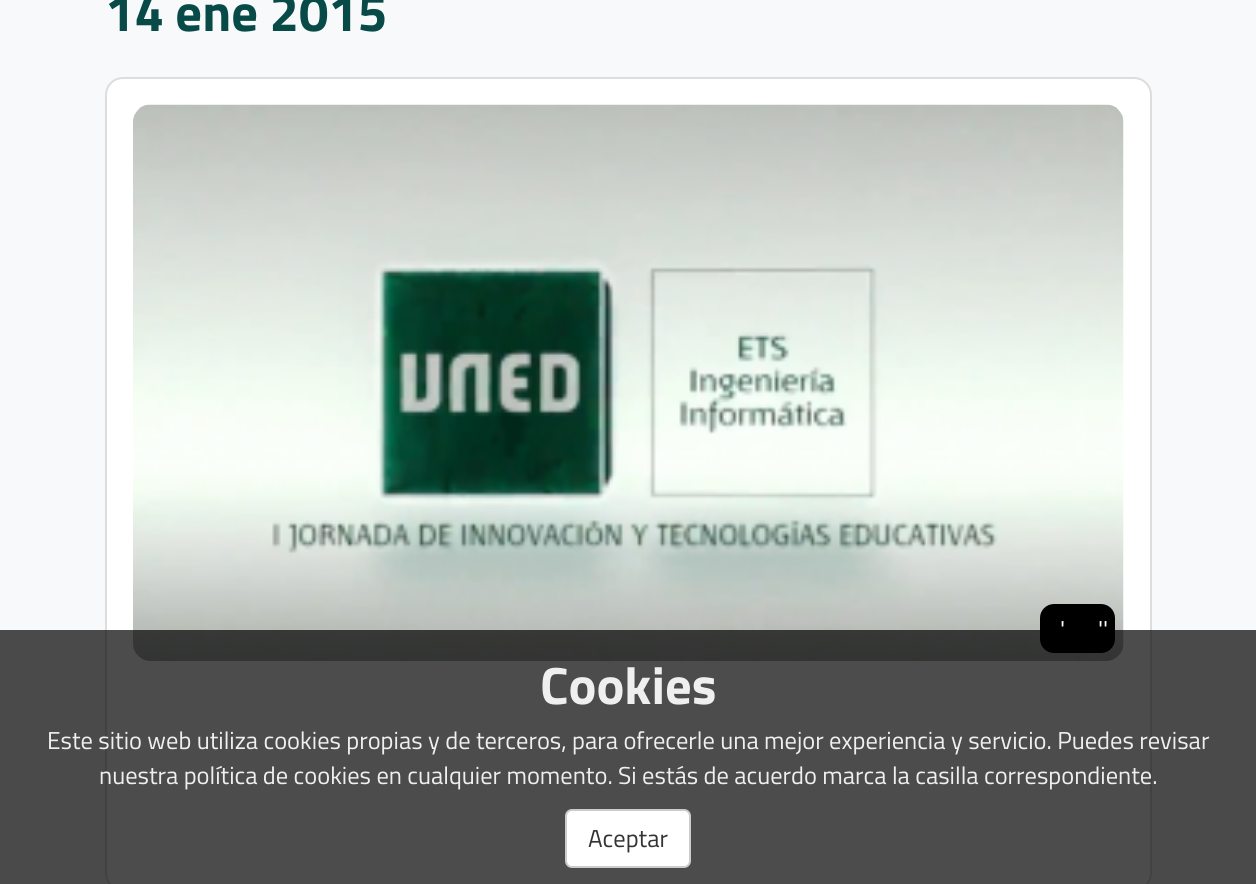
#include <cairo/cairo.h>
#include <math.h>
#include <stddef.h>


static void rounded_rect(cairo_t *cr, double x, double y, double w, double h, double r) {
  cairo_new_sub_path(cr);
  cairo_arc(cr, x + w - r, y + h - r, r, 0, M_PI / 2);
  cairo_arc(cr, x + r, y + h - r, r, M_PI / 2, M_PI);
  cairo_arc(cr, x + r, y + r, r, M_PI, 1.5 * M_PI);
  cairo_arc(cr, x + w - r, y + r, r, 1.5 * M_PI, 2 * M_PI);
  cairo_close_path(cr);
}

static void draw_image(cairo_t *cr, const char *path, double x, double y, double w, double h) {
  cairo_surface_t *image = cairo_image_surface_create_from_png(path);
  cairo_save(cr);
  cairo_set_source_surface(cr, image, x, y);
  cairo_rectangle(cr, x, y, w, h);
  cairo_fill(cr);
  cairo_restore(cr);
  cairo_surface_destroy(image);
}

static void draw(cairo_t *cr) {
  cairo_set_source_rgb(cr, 248 / 255.0, 249 / 255.0, 250 / 255.0);
  cairo_paint(cr);
  cairo_set_source_rgb(cr, 1, 1, 1);
  rounded_rect(cr, 106, 78, 1045, 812, 17);
  cairo_fill_preserve(cr);
  cairo_set_source_rgb(cr, 221 / 255.0, 221 / 255.0, 221 / 255.0);
  cairo_stroke(cr);
  draw_image(cr, "images/1.png", 133, 104, 991, 557);
  cairo_set_source_rgb(cr, 0, 0, 0);
  rounded_rect(cr, 1040, 604, 75, 49, 14);
  cairo_fill(cr);
  cairo_set_source_rgba(cr, 0, 0, 0, 0.7);
  cairo_rectangle(cr, 0, 630, 1256, 254);
  cairo_fill(cr);
  cairo_set_source_rgb(cr, 1, 1, 1);
  rounded_rect(cr, 566, 810, 124, 57, 6);
  cairo_fill_preserve(cr);
  cairo_set_source_rgb(cr, 204 / 255.0, 204 / 255.0, 204 / 255.0);
  cairo_stroke(cr);
  cairo_select_font_face(cr, "Titillium Web", CAIRO_FONT_SLANT_NORMAL, CAIRO_FONT_WEIGHT_BOLD);
  cairo_set_font_size(cr, 52.5);
  cairo_set_source_rgb(cr, 8 / 255.0, 74 / 255.0, 72 / 255.0);
  cairo_move_to(cr, 105, 31);
  cairo_show_text(cr, "14 ene 2015");
  cairo_select_font_face(cr, "Titillium Web", CAIRO_FONT_SLANT_NORMAL, CAIRO_FONT_WEIGHT_NORMAL);
  cairo_set_font_size(cr, 24.5);
  cairo_set_source_rgb(cr, 1, 1, 1);
  cairo_move_to(cr, 1060, 638);
  cairo_show_text(cr, "'");
  cairo_move_to(cr, 1098, 638);
  cairo_show_text(cr, "''");
  cairo_select_font_face(cr, "Titillium Web", CAIRO_FONT_SLANT_NORMAL, CAIRO_FONT_WEIGHT_BOLD);
  cairo_set_font_size(cr, 52.5);
  cairo_set_source_rgb(cr, 239 / 255.0, 239 / 255.0, 239 / 255.0);
  cairo_move_to(cr, 540, 704);
  cairo_show_text(cr, "Cookies");
  cairo_select_font_face(cr, "Titillium Web", CAIRO_FONT_SLANT_NORMAL, CAIRO_FONT_WEIGHT_NORMAL);
  cairo_set_font_size(cr, 24.5);
  cairo_move_to(cr, 47, 749);
  cairo_show_text(cr, "Este sitio web utiliza cookies propias y de terceros, para ofrecerle una mejor experiencia y servicio. Puedes revisar");
  cairo_move_to(cr, 99, 784);
  cairo_show_text(cr, "nuestra política de cookies en cualquier momento. Si estás de acuerdo marca la casilla correspondiente.");
  cairo_set_source_rgb(cr, 51 / 255.0, 51 / 255.0, 51 / 255.0);
  cairo_move_to(cr, 588, 847);
  cairo_show_text(cr, "Aceptar");
}

int main(void) {
  cairo_surface_t *surface = cairo_image_surface_create(CAIRO_FORMAT_RGB24, 1256, 884);
  cairo_t *cr = cairo_create(surface);
  cairo_font_options_t *options = cairo_font_options_create();
  cairo_font_options_set_hint_metrics(options, CAIRO_HINT_METRICS_OFF);
  cairo_font_options_set_hint_style(options, CAIRO_HINT_STYLE_NONE);
  cairo_set_font_options(cr, options);
  cairo_set_miter_limit(cr, 4);
  draw(cr);
  cairo_surface_write_to_png(surface, "out.png");
  cairo_font_options_destroy(options);
  cairo_destroy(cr);
  cairo_surface_destroy(surface);
  return 0;
}
